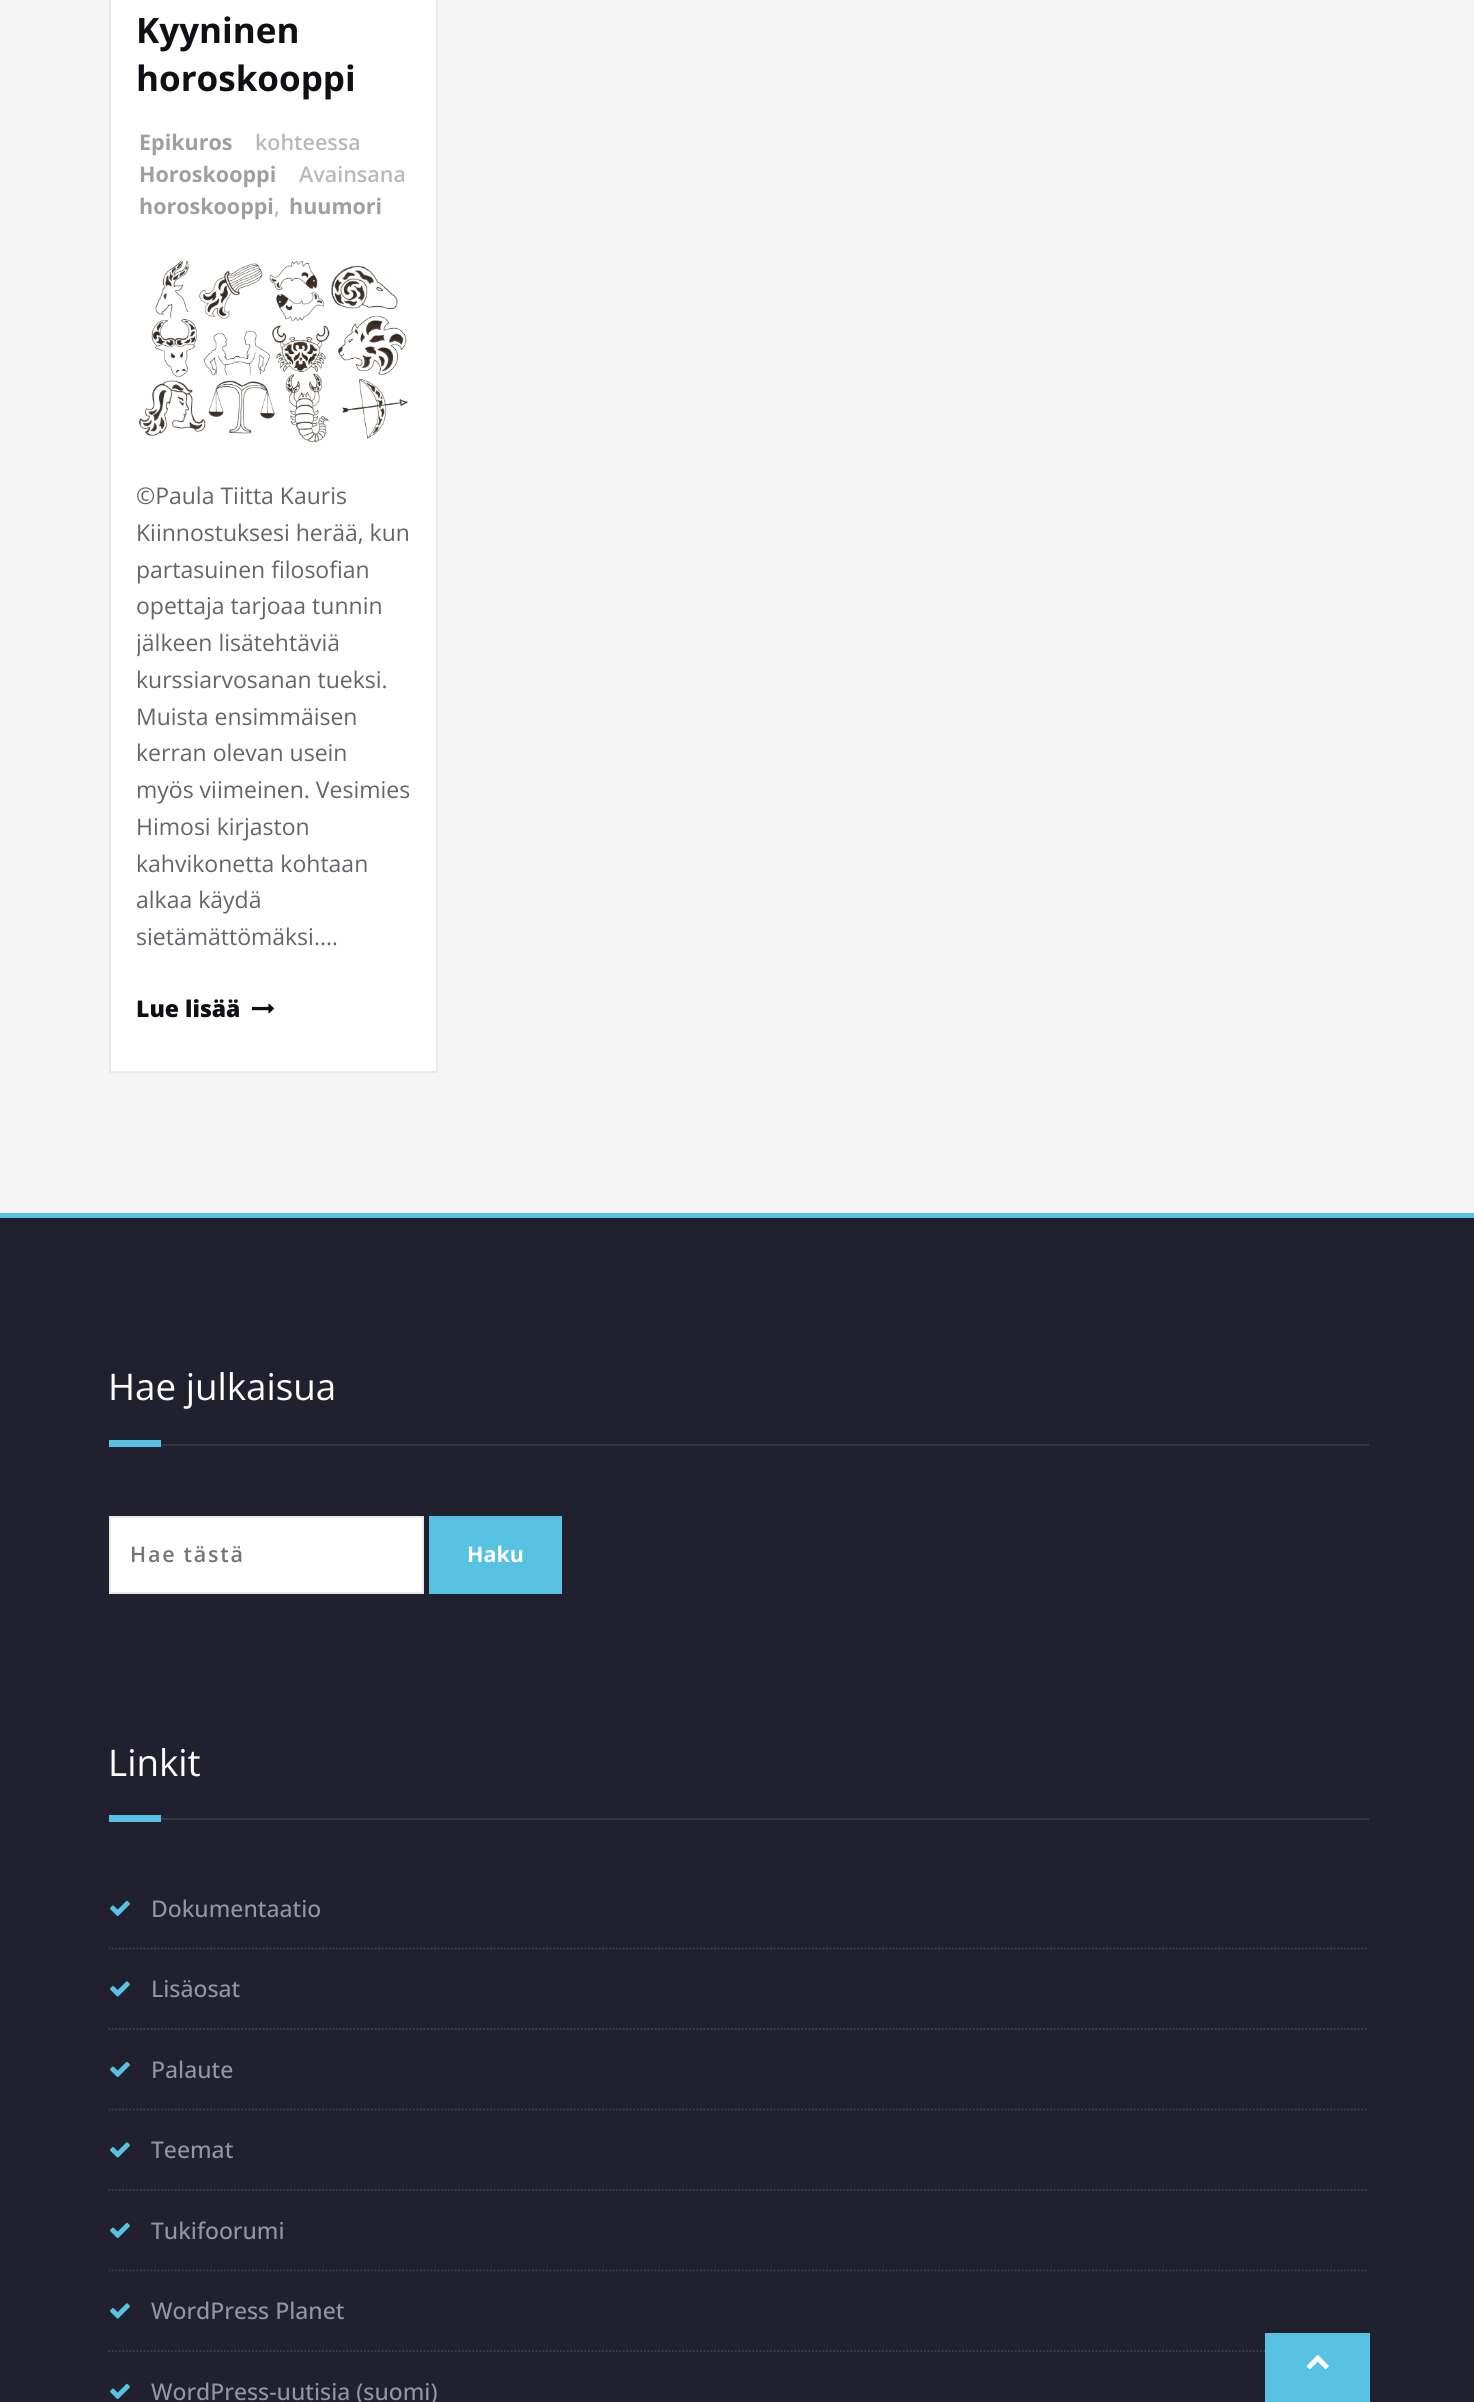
#include <cairo/cairo.h>
#include <math.h>
#include <stddef.h>


static void draw_spaced(cairo_t *cr, double x, double y, const char *s, double letter, double word) {
  cairo_move_to(cr, x, y);
  while (*s) {
    char ch[5] = {0};
    int n = 0;
    do ch[n++] = *s++; while ((*s & 0xC0) == 0x80);
    cairo_show_text(cr, ch);
    cairo_rel_move_to(cr, letter + word * (*ch == ' '), 0);
  }
}

static void draw_image(cairo_t *cr, const char *path, double x, double y, double w, double h) {
  cairo_surface_t *image = cairo_image_surface_create_from_png(path);
  cairo_save(cr);
  cairo_set_source_surface(cr, image, x, y);
  cairo_rectangle(cr, x, y, w, h);
  cairo_fill(cr);
  cairo_restore(cr);
  cairo_surface_destroy(image);
}

static void draw(cairo_t *cr) {
  cairo_set_source_rgb(cr, 245 / 255.0, 245 / 255.0, 245 / 255.0);
  cairo_paint(cr);
  cairo_set_source_rgb(cr, 1, 1, 1);
  cairo_rectangle(cr, 110, -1, 327, 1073);
  cairo_fill_preserve(cr);
  cairo_set_source_rgb(cr, 233 / 255.0, 233 / 255.0, 233 / 255.0);
  cairo_stroke(cr);
  draw_image(cr, "images/1.png", 139, 261, 269, 182);
  draw_image(cr, "images/2.png", 252, 1003, 23, 11);
  cairo_set_source_rgb(cr, 33 / 255.0, 32 / 255.0, 46 / 255.0);
  cairo_rectangle(cr, 0, 1218, 1474, 1184);
  cairo_fill(cr);
  cairo_set_source_rgb(cr, 88 / 255.0, 194 / 255.0, 226 / 255.0);
  cairo_rectangle(cr, 0, 1213, 1474, 5);
  cairo_fill(cr);
  cairo_set_source_rgb(cr, 54 / 255.0, 53 / 255.0, 68 / 255.0);
  cairo_rectangle(cr, 161, 1444, 1208, 2);
  cairo_fill(cr);
  cairo_set_source_rgb(cr, 88 / 255.0, 194 / 255.0, 226 / 255.0);
  cairo_rectangle(cr, 109, 1440, 52, 7);
  cairo_fill(cr);
  cairo_set_source_rgb(cr, 1, 1, 1);
  cairo_rectangle(cr, 110, 1517, 313, 76);
  cairo_fill_preserve(cr);
  cairo_set_source_rgb(cr, 233 / 255.0, 233 / 255.0, 233 / 255.0);
  cairo_stroke(cr);
  cairo_set_source_rgb(cr, 88 / 255.0, 194 / 255.0, 226 / 255.0);
  cairo_rectangle(cr, 429, 1516, 133, 78);
  cairo_fill(cr);
  cairo_set_source_rgb(cr, 54 / 255.0, 53 / 255.0, 68 / 255.0);
  cairo_rectangle(cr, 161, 1818, 1208, 2);
  cairo_fill(cr);
  cairo_set_source_rgb(cr, 88 / 255.0, 194 / 255.0, 226 / 255.0);
  cairo_rectangle(cr, 109, 1815, 52, 7);
  cairo_fill(cr);
  cairo_save(cr);
  cairo_rectangle(cr, 109, 1734, 1260, 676);
  cairo_clip(cr);
  cairo_new_path(cr);
  cairo_move_to(cr, 108.5, 1948.5);
  cairo_line_to(cr, 1368.5, 1948.5);
  cairo_set_source_rgb(cr, 64 / 255.0, 63 / 255.0, 78 / 255.0);
  cairo_set_line_width(cr, 1.8);
  cairo_set_dash(cr, (double[]){1.75, 1.75}, 2, 0);
  cairo_stroke(cr);
  cairo_restore(cr);
  draw_image(cr, "images/3.png", 110, 1900, 20, 17);
  cairo_new_path(cr);
  cairo_move_to(cr, 108.5, 2029);
  cairo_line_to(cr, 1368.5, 2029);
  cairo_set_source_rgb(cr, 64 / 255.0, 63 / 255.0, 78 / 255.0);
  cairo_set_line_width(cr, 1.8);
  cairo_set_dash(cr, (double[]){1.75, 1.75}, 2, 0);
  cairo_stroke(cr);
  draw_image(cr, "images/4.png", 110, 1981, 20, 16);
  cairo_save(cr);
  cairo_rectangle(cr, 109, 1734, 1260, 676);
  cairo_clip(cr);
  cairo_new_path(cr);
  cairo_move_to(cr, 108.5, 2109.5);
  cairo_line_to(cr, 1368.5, 2109.5);
  cairo_stroke(cr);
  cairo_restore(cr);
  draw_image(cr, "images/3.png", 110, 2061, 20, 17);
  cairo_new_path(cr);
  cairo_move_to(cr, 108.5, 2190);
  cairo_line_to(cr, 1368.5, 2190);
  cairo_stroke(cr);
  draw_image(cr, "images/4.png", 110, 2142, 20, 16);
  cairo_save(cr);
  cairo_rectangle(cr, 109, 1734, 1260, 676);
  cairo_clip(cr);
  cairo_new_path(cr);
  cairo_move_to(cr, 108.5, 2270.5);
  cairo_line_to(cr, 1368.5, 2270.5);
  cairo_stroke(cr);
  cairo_restore(cr);
  draw_image(cr, "images/3.png", 110, 2222, 20, 17);
  cairo_new_path(cr);
  cairo_move_to(cr, 108.5, 2351);
  cairo_line_to(cr, 1368.5, 2351);
  cairo_stroke(cr);
  draw_image(cr, "images/4.png", 110, 2303, 20, 16);
  draw_image(cr, "images/3.png", 110, 2383, 20, 17);
  cairo_set_source_rgb(cr, 88 / 255.0, 194 / 255.0, 226 / 255.0);
  cairo_rectangle(cr, 1265, 2333, 105, 69);
  cairo_fill(cr);
  draw_image(cr, "images/5.png", 1306, 2355, 23, 15);
  cairo_select_font_face(cr, "Open Sans", CAIRO_FONT_SLANT_NORMAL, CAIRO_FONT_WEIGHT_BOLD);
  cairo_set_font_size(cr, 35);
  cairo_set_source_rgb(cr, 15 / 255.0, 15 / 255.0, 22 / 255.0);
  cairo_move_to(cr, 136, 43);
  cairo_show_text(cr, "Kyyninen");
  cairo_move_to(cr, 136, 91);
  cairo_show_text(cr, "horoskooppi");
  cairo_set_font_size(cr, 21.5);
  cairo_set_source_rgb(cr, 159 / 255.0, 159 / 255.0, 159 / 255.0);
  cairo_move_to(cr, 139, 150);
  cairo_show_text(cr, "Epikuros");
  cairo_select_font_face(cr, "Open Sans SemiBold", CAIRO_FONT_SLANT_NORMAL, CAIRO_FONT_WEIGHT_NORMAL);
  cairo_set_source_rgb(cr, 185 / 255.0, 185 / 255.0, 185 / 255.0);
  cairo_move_to(cr, 255, 150);
  cairo_show_text(cr, "kohteessa");
  cairo_select_font_face(cr, "Open Sans", CAIRO_FONT_SLANT_NORMAL, CAIRO_FONT_WEIGHT_BOLD);
  cairo_set_source_rgb(cr, 159 / 255.0, 159 / 255.0, 159 / 255.0);
  cairo_move_to(cr, 139, 182);
  cairo_show_text(cr, "Horoskooppi");
  cairo_select_font_face(cr, "Open Sans SemiBold", CAIRO_FONT_SLANT_NORMAL, CAIRO_FONT_WEIGHT_NORMAL);
  cairo_set_source_rgb(cr, 185 / 255.0, 185 / 255.0, 185 / 255.0);
  cairo_move_to(cr, 299, 182);
  cairo_show_text(cr, "Avainsana");
  cairo_select_font_face(cr, "Open Sans", CAIRO_FONT_SLANT_NORMAL, CAIRO_FONT_WEIGHT_BOLD);
  cairo_set_source_rgb(cr, 159 / 255.0, 159 / 255.0, 159 / 255.0);
  cairo_move_to(cr, 139, 214);
  cairo_show_text(cr, "horoskooppi");
  cairo_select_font_face(cr, "Open Sans SemiBold", CAIRO_FONT_SLANT_NORMAL, CAIRO_FONT_WEIGHT_NORMAL);
  cairo_set_source_rgb(cr, 185 / 255.0, 185 / 255.0, 185 / 255.0);
  cairo_move_to(cr, 274, 214);
  cairo_show_text(cr, ",");
  cairo_select_font_face(cr, "Open Sans", CAIRO_FONT_SLANT_NORMAL, CAIRO_FONT_WEIGHT_BOLD);
  cairo_set_source_rgb(cr, 159 / 255.0, 159 / 255.0, 159 / 255.0);
  cairo_move_to(cr, 289, 214);
  cairo_show_text(cr, "huumori");
  cairo_save(cr);
  cairo_rectangle(cr, 137, 478, 273, 549);
  cairo_clip(cr);
  cairo_select_font_face(cr, "Open Sans", CAIRO_FONT_SLANT_NORMAL, CAIRO_FONT_WEIGHT_NORMAL);
  cairo_set_font_size(cr, 23);
  cairo_set_source_rgb(cr, 100 / 255.0, 100 / 255.0, 109 / 255.0);
  cairo_move_to(cr, 136, 504);
  cairo_show_text(cr, "©Paula Tiitta Kauris");
  cairo_restore(cr);
  cairo_select_font_face(cr, "Open Sans", CAIRO_FONT_SLANT_NORMAL, CAIRO_FONT_WEIGHT_NORMAL);
  cairo_set_font_size(cr, 23);
  cairo_set_source_rgb(cr, 100 / 255.0, 100 / 255.0, 109 / 255.0);
  cairo_move_to(cr, 136, 541);
  cairo_show_text(cr, "Kiinnostuksesi herää, kun");
  cairo_move_to(cr, 136, 578);
  cairo_show_text(cr, "partasuinen filosofian");
  cairo_move_to(cr, 136, 614);
  cairo_show_text(cr, "opettaja tarjoaa tunnin");
  cairo_save(cr);
  cairo_rectangle(cr, 137, 478, 273, 549);
  cairo_clip(cr);
  cairo_move_to(cr, 136, 651);
  cairo_show_text(cr, "jälkeen lisätehtäviä");
  cairo_restore(cr);
  cairo_move_to(cr, 136, 688);
  cairo_show_text(cr, "kurssiarvosanan tueksi.");
  cairo_move_to(cr, 136, 725);
  cairo_show_text(cr, "Muista ensimmäisen");
  cairo_move_to(cr, 136, 761);
  cairo_show_text(cr, "kerran olevan usein");
  cairo_move_to(cr, 136, 798);
  cairo_show_text(cr, "myös viimeinen. Vesimies");
  cairo_move_to(cr, 136, 835);
  cairo_show_text(cr, "Himosi kirjaston");
  cairo_move_to(cr, 136, 872);
  cairo_show_text(cr, "kahvikonetta kohtaan");
  cairo_save(cr);
  cairo_rectangle(cr, 137, 478, 273, 549);
  cairo_clip(cr);
  cairo_move_to(cr, 136, 908);
  cairo_show_text(cr, "alkaa käydä");
  cairo_move_to(cr, 136, 945);
  cairo_show_text(cr, "sietämättömäksi.…");
  cairo_restore(cr);
  cairo_select_font_face(cr, "Open Sans ExtraBold", CAIRO_FONT_SLANT_NORMAL, CAIRO_FONT_WEIGHT_NORMAL);
  cairo_set_source_rgb(cr, 15 / 255.0, 15 / 255.0, 22 / 255.0);
  cairo_move_to(cr, 136, 1017);
  cairo_show_text(cr, "Lue lisää");
  cairo_select_font_face(cr, "Open Sans", CAIRO_FONT_SLANT_NORMAL, CAIRO_FONT_WEIGHT_NORMAL);
  cairo_set_font_size(cr, 36.75);
  cairo_set_source_rgb(cr, 1, 1, 1);
  cairo_move_to(cr, 108, 1400);
  cairo_show_text(cr, "Hae julkaisua");
  cairo_select_font_face(cr, "Open Sans SemiBold", CAIRO_FONT_SLANT_NORMAL, CAIRO_FONT_WEIGHT_NORMAL);
  cairo_set_font_size(cr, 21.5);
  cairo_set_source_rgb(cr, 117 / 255.0, 117 / 255.0, 117 / 255.0);
  draw_spaced(cr, 130, 1562, "Hae tästä", 1.75, 0);
  cairo_select_font_face(cr, "Open Sans", CAIRO_FONT_SLANT_NORMAL, CAIRO_FONT_WEIGHT_BOLD);
  cairo_set_source_rgb(cr, 1, 1, 1);
  cairo_move_to(cr, 467, 1562);
  cairo_show_text(cr, "Haku");
  cairo_select_font_face(cr, "Open Sans", CAIRO_FONT_SLANT_NORMAL, CAIRO_FONT_WEIGHT_NORMAL);
  cairo_set_font_size(cr, 36.75);
  cairo_move_to(cr, 108, 1776);
  cairo_show_text(cr, "Linkit");
  cairo_select_font_face(cr, "Open Sans Medium", CAIRO_FONT_SLANT_NORMAL, CAIRO_FONT_WEIGHT_NORMAL);
  cairo_set_font_size(cr, 23);
  cairo_set_source_rgb(cr, 149 / 255.0, 149 / 255.0, 160 / 255.0);
  cairo_move_to(cr, 151, 1917);
  cairo_show_text(cr, "Dokumentaatio");
  cairo_move_to(cr, 151, 1997);
  cairo_show_text(cr, "Lisäosat");
  cairo_move_to(cr, 151, 2078);
  cairo_show_text(cr, "Palaute");
  cairo_move_to(cr, 151, 2158);
  cairo_show_text(cr, "Teemat");
  cairo_move_to(cr, 151, 2239);
  cairo_show_text(cr, "Tukifoorumi");
  cairo_move_to(cr, 151, 2319);
  cairo_show_text(cr, "WordPress Planet");
  cairo_move_to(cr, 151, 2400);
  cairo_show_text(cr, "WordPress-uutisia (suomi)");
}

int main(void) {
  cairo_surface_t *surface = cairo_image_surface_create(CAIRO_FORMAT_RGB24, 1474, 2402);
  cairo_t *cr = cairo_create(surface);
  cairo_font_options_t *options = cairo_font_options_create();
  cairo_font_options_set_hint_metrics(options, CAIRO_HINT_METRICS_OFF);
  cairo_font_options_set_hint_style(options, CAIRO_HINT_STYLE_NONE);
  cairo_set_font_options(cr, options);
  cairo_set_miter_limit(cr, 4);
  draw(cr);
  cairo_surface_write_to_png(surface, "out.png");
  cairo_font_options_destroy(options);
  cairo_destroy(cr);
  cairo_surface_destroy(surface);
  return 0;
}
